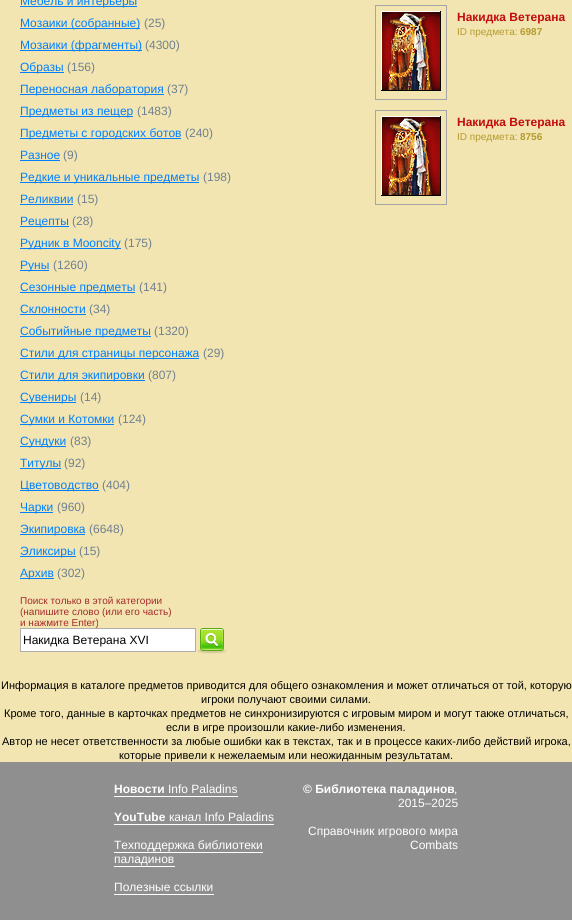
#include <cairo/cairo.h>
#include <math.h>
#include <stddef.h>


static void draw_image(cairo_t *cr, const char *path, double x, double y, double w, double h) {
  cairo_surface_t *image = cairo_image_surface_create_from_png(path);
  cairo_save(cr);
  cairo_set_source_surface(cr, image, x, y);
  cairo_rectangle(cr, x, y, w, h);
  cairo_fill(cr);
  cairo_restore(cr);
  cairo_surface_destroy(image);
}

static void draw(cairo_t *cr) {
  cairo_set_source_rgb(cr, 242 / 255.0, 229 / 255.0, 177 / 255.0);
  cairo_paint(cr);
  cairo_set_source_rgb(cr, 0, 127 / 255.0, 1);
  cairo_rectangle(cr, 20, 6, 117, 1);
  cairo_fill(cr);
  cairo_rectangle(cr, 20, 28, 120, 1);
  cairo_fill(cr);
  cairo_rectangle(cr, 20, 50, 122, 1);
  cairo_fill(cr);
  cairo_rectangle(cr, 20, 72, 44, 1);
  cairo_fill(cr);
  cairo_rectangle(cr, 20, 94, 144, 1);
  cairo_fill(cr);
  cairo_rectangle(cr, 20, 116, 113, 1);
  cairo_fill(cr);
  cairo_rectangle(cr, 20, 138, 161, 1);
  cairo_fill(cr);
  cairo_rectangle(cr, 20, 160, 40, 1);
  cairo_fill(cr);
  cairo_rectangle(cr, 20, 182, 179, 1);
  cairo_fill(cr);
  cairo_rectangle(cr, 20, 204, 53, 1);
  cairo_fill(cr);
  cairo_rectangle(cr, 20, 226, 49, 1);
  cairo_fill(cr);
  cairo_rectangle(cr, 20, 248, 101, 1);
  cairo_fill(cr);
  cairo_rectangle(cr, 20, 270, 29, 1);
  cairo_fill(cr);
  cairo_rectangle(cr, 20, 292, 115, 1);
  cairo_fill(cr);
  cairo_rectangle(cr, 20, 314, 66, 1);
  cairo_fill(cr);
  cairo_rectangle(cr, 20, 336, 131, 1);
  cairo_fill(cr);
  cairo_rectangle(cr, 20, 358, 179, 1);
  cairo_fill(cr);
  cairo_rectangle(cr, 20, 380, 125, 1);
  cairo_fill(cr);
  cairo_rectangle(cr, 20, 402, 56, 1);
  cairo_fill(cr);
  cairo_rectangle(cr, 20, 424, 94, 1);
  cairo_fill(cr);
  cairo_rectangle(cr, 20, 446, 46, 1);
  cairo_fill(cr);
  cairo_rectangle(cr, 20, 468, 41, 1);
  cairo_fill(cr);
  cairo_rectangle(cr, 20, 490, 79, 1);
  cairo_fill(cr);
  cairo_rectangle(cr, 20, 512, 33, 1);
  cairo_fill(cr);
  cairo_rectangle(cr, 20, 534, 65, 1);
  cairo_fill(cr);
  cairo_rectangle(cr, 20, 556, 56, 1);
  cairo_fill(cr);
  cairo_rectangle(cr, 20, 578, 34, 1);
  cairo_fill(cr);
  cairo_set_source_rgb(cr, 1, 1, 1);
  cairo_rectangle(cr, 20.5, 628.5, 175, 23);
  cairo_fill_preserve(cr);
  cairo_set_source_rgb(cr, 176 / 255.0, 176 / 255.0, 176 / 255.0);
  cairo_set_line_width(cr, 1);
  cairo_stroke(cr);
  draw_image(cr, "images/1.png", 197, 628, 30, 26);
  cairo_rectangle(cr, 375.5, 5.5, 71, 94);
  cairo_set_source_rgb(cr, 165 / 255.0, 165 / 255.0, 165 / 255.0);
  cairo_stroke(cr);
  draw_image(cr, "images/2.png", 381, 11, 60, 80);
  cairo_rectangle(cr, 375.5, 110.5, 71, 94);
  cairo_stroke(cr);
  draw_image(cr, "images/2.png", 381, 116, 60, 80);
  cairo_set_source_rgb(cr, 143 / 255.0, 143 / 255.0, 143 / 255.0);
  cairo_rectangle(cr, 0, 762, 572, 158);
  cairo_fill(cr);
  cairo_set_source_rgb(cr, 1, 1, 1);
  cairo_rectangle(cr, 114, 796, 124, 1);
  cairo_fill(cr);
  cairo_rectangle(cr, 114, 824, 160, 1);
  cairo_fill(cr);
  cairo_rectangle(cr, 114, 852, 149, 1);
  cairo_fill(cr);
  cairo_rectangle(cr, 114, 866, 61, 1);
  cairo_fill(cr);
  cairo_rectangle(cr, 114, 894, 100, 1);
  cairo_fill(cr);
  cairo_select_font_face(cr, "Liberation Sans", CAIRO_FONT_SLANT_NORMAL, CAIRO_FONT_WEIGHT_NORMAL);
  cairo_set_font_size(cr, 12);
  cairo_set_source_rgb(cr, 0, 127 / 255.0, 1);
  cairo_move_to(cr, 20, 5);
  cairo_show_text(cr, "Мебель и интерьеры");
  cairo_move_to(cr, 20, 27);
  cairo_show_text(cr, "Мозаики (собранные)");
  cairo_set_source_rgb(cr, 112 / 255.0, 128 / 255.0, 144 / 255.0);
  cairo_move_to(cr, 144, 27);
  cairo_show_text(cr, "(25)");
  cairo_set_source_rgb(cr, 0, 127 / 255.0, 1);
  cairo_move_to(cr, 20, 49);
  cairo_show_text(cr, "Мозаики (фрагменты)");
  cairo_set_source_rgb(cr, 112 / 255.0, 128 / 255.0, 144 / 255.0);
  cairo_move_to(cr, 145, 49);
  cairo_show_text(cr, "(4300)");
  cairo_set_source_rgb(cr, 0, 127 / 255.0, 1);
  cairo_move_to(cr, 20, 71);
  cairo_show_text(cr, "Образы");
  cairo_set_source_rgb(cr, 112 / 255.0, 128 / 255.0, 144 / 255.0);
  cairo_move_to(cr, 67, 71);
  cairo_show_text(cr, "(156)");
  cairo_set_source_rgb(cr, 0, 127 / 255.0, 1);
  cairo_move_to(cr, 20, 93);
  cairo_show_text(cr, "Переносная лаборатория");
  cairo_set_source_rgb(cr, 112 / 255.0, 128 / 255.0, 144 / 255.0);
  cairo_move_to(cr, 167, 93);
  cairo_show_text(cr, "(37)");
  cairo_set_source_rgb(cr, 0, 127 / 255.0, 1);
  cairo_move_to(cr, 20, 115);
  cairo_show_text(cr, "Предметы из пещер");
  cairo_set_source_rgb(cr, 112 / 255.0, 128 / 255.0, 144 / 255.0);
  cairo_move_to(cr, 137, 115);
  cairo_show_text(cr, "(1483)");
  cairo_set_source_rgb(cr, 0, 127 / 255.0, 1);
  cairo_move_to(cr, 20, 137);
  cairo_show_text(cr, "Предметы с городских ботов");
  cairo_set_source_rgb(cr, 112 / 255.0, 128 / 255.0, 144 / 255.0);
  cairo_move_to(cr, 185, 137);
  cairo_show_text(cr, "(240)");
  cairo_set_source_rgb(cr, 0, 127 / 255.0, 1);
  cairo_move_to(cr, 20, 159);
  cairo_show_text(cr, "Разное");
  cairo_set_source_rgb(cr, 112 / 255.0, 128 / 255.0, 144 / 255.0);
  cairo_move_to(cr, 63, 159);
  cairo_show_text(cr, "(9)");
  cairo_set_source_rgb(cr, 0, 127 / 255.0, 1);
  cairo_move_to(cr, 20, 181);
  cairo_show_text(cr, "Редкие и уникальные предметы");
  cairo_set_source_rgb(cr, 112 / 255.0, 128 / 255.0, 144 / 255.0);
  cairo_move_to(cr, 203, 181);
  cairo_show_text(cr, "(198)");
  cairo_set_source_rgb(cr, 0, 127 / 255.0, 1);
  cairo_move_to(cr, 20, 203);
  cairo_show_text(cr, "Реликвии");
  cairo_set_source_rgb(cr, 112 / 255.0, 128 / 255.0, 144 / 255.0);
  cairo_move_to(cr, 77, 203);
  cairo_show_text(cr, "(15)");
  cairo_set_source_rgb(cr, 0, 127 / 255.0, 1);
  cairo_move_to(cr, 20, 225);
  cairo_show_text(cr, "Рецепты");
  cairo_set_source_rgb(cr, 112 / 255.0, 128 / 255.0, 144 / 255.0);
  cairo_move_to(cr, 72, 225);
  cairo_show_text(cr, "(28)");
  cairo_set_source_rgb(cr, 0, 127 / 255.0, 1);
  cairo_move_to(cr, 20, 247);
  cairo_show_text(cr, "Рудник в Mooncity");
  cairo_set_source_rgb(cr, 112 / 255.0, 128 / 255.0, 144 / 255.0);
  cairo_move_to(cr, 124, 247);
  cairo_show_text(cr, "(175)");
  cairo_set_source_rgb(cr, 0, 127 / 255.0, 1);
  cairo_move_to(cr, 20, 269);
  cairo_show_text(cr, "Руны");
  cairo_set_source_rgb(cr, 112 / 255.0, 128 / 255.0, 144 / 255.0);
  cairo_move_to(cr, 53, 269);
  cairo_show_text(cr, "(1260)");
  cairo_set_source_rgb(cr, 0, 127 / 255.0, 1);
  cairo_move_to(cr, 20, 291);
  cairo_show_text(cr, "Сезонные предметы");
  cairo_set_source_rgb(cr, 112 / 255.0, 128 / 255.0, 144 / 255.0);
  cairo_move_to(cr, 139, 291);
  cairo_show_text(cr, "(141)");
  cairo_set_source_rgb(cr, 0, 127 / 255.0, 1);
  cairo_move_to(cr, 20, 313);
  cairo_show_text(cr, "Склонности");
  cairo_set_source_rgb(cr, 112 / 255.0, 128 / 255.0, 144 / 255.0);
  cairo_move_to(cr, 89, 313);
  cairo_show_text(cr, "(34)");
  cairo_set_source_rgb(cr, 0, 127 / 255.0, 1);
  cairo_move_to(cr, 20, 335);
  cairo_show_text(cr, "Событийные предметы");
  cairo_set_source_rgb(cr, 112 / 255.0, 128 / 255.0, 144 / 255.0);
  cairo_move_to(cr, 154, 335);
  cairo_show_text(cr, "(1320)");
  cairo_set_source_rgb(cr, 0, 127 / 255.0, 1);
  cairo_move_to(cr, 20, 357);
  cairo_show_text(cr, "Стили для страницы персонажа");
  cairo_set_source_rgb(cr, 112 / 255.0, 128 / 255.0, 144 / 255.0);
  cairo_move_to(cr, 203, 357);
  cairo_show_text(cr, "(29)");
  cairo_set_source_rgb(cr, 0, 127 / 255.0, 1);
  cairo_move_to(cr, 20, 379);
  cairo_show_text(cr, "Стили для экипировки");
  cairo_set_source_rgb(cr, 112 / 255.0, 128 / 255.0, 144 / 255.0);
  cairo_move_to(cr, 148, 379);
  cairo_show_text(cr, "(807)");
  cairo_set_source_rgb(cr, 0, 127 / 255.0, 1);
  cairo_move_to(cr, 20, 401);
  cairo_show_text(cr, "Сувениры");
  cairo_set_source_rgb(cr, 112 / 255.0, 128 / 255.0, 144 / 255.0);
  cairo_move_to(cr, 80, 401);
  cairo_show_text(cr, "(14)");
  cairo_set_source_rgb(cr, 0, 127 / 255.0, 1);
  cairo_move_to(cr, 20, 423);
  cairo_show_text(cr, "Сумки и Котомки");
  cairo_set_source_rgb(cr, 112 / 255.0, 128 / 255.0, 144 / 255.0);
  cairo_move_to(cr, 118, 423);
  cairo_show_text(cr, "(124)");
  cairo_set_source_rgb(cr, 0, 127 / 255.0, 1);
  cairo_move_to(cr, 20, 445);
  cairo_show_text(cr, "Сундуки");
  cairo_set_source_rgb(cr, 112 / 255.0, 128 / 255.0, 144 / 255.0);
  cairo_move_to(cr, 70, 445);
  cairo_show_text(cr, "(83)");
  cairo_set_source_rgb(cr, 0, 127 / 255.0, 1);
  cairo_move_to(cr, 20, 467);
  cairo_show_text(cr, "Титулы");
  cairo_set_source_rgb(cr, 112 / 255.0, 128 / 255.0, 144 / 255.0);
  cairo_move_to(cr, 64, 467);
  cairo_show_text(cr, "(92)");
  cairo_set_source_rgb(cr, 0, 127 / 255.0, 1);
  cairo_move_to(cr, 20, 489);
  cairo_show_text(cr, "Цветоводство");
  cairo_set_source_rgb(cr, 112 / 255.0, 128 / 255.0, 144 / 255.0);
  cairo_move_to(cr, 102, 489);
  cairo_show_text(cr, "(404)");
  cairo_set_source_rgb(cr, 0, 127 / 255.0, 1);
  cairo_move_to(cr, 20, 511);
  cairo_show_text(cr, "Чарки");
  cairo_set_source_rgb(cr, 112 / 255.0, 128 / 255.0, 144 / 255.0);
  cairo_move_to(cr, 57, 511);
  cairo_show_text(cr, "(960)");
  cairo_set_source_rgb(cr, 0, 127 / 255.0, 1);
  cairo_move_to(cr, 20, 533);
  cairo_show_text(cr, "Экипировка");
  cairo_set_source_rgb(cr, 112 / 255.0, 128 / 255.0, 144 / 255.0);
  cairo_move_to(cr, 89, 533);
  cairo_show_text(cr, "(6648)");
  cairo_set_source_rgb(cr, 0, 127 / 255.0, 1);
  cairo_move_to(cr, 20, 555);
  cairo_show_text(cr, "Эликсиры");
  cairo_set_source_rgb(cr, 112 / 255.0, 128 / 255.0, 144 / 255.0);
  cairo_move_to(cr, 79, 555);
  cairo_show_text(cr, "(15)");
  cairo_set_source_rgb(cr, 0, 127 / 255.0, 1);
  cairo_move_to(cr, 20, 577);
  cairo_show_text(cr, "Архив");
  cairo_set_source_rgb(cr, 112 / 255.0, 128 / 255.0, 144 / 255.0);
  cairo_move_to(cr, 57, 577);
  cairo_show_text(cr, "(302)");
  cairo_set_font_size(cr, 10);
  cairo_set_source_rgb(cr, 165 / 255.0, 42 / 255.0, 42 / 255.0);
  cairo_move_to(cr, 20, 604);
  cairo_show_text(cr, "Поиск только в этой категории");
  cairo_move_to(cr, 20, 615);
  cairo_show_text(cr, "(напишите слово (или его часть)");
  cairo_move_to(cr, 20, 626);
  cairo_show_text(cr, "и нажмите Enter)");
  cairo_set_font_size(cr, 12);
  cairo_set_source_rgb(cr, 0, 0, 0);
  cairo_move_to(cr, 23, 644);
  cairo_show_text(cr, "Накидка Ветерана XVI");
  cairo_select_font_face(cr, "Liberation Sans", CAIRO_FONT_SLANT_NORMAL, CAIRO_FONT_WEIGHT_BOLD);
  cairo_set_source_rgb(cr, 194 / 255.0, 12 / 255.0, 12 / 255.0);
  cairo_move_to(cr, 457, 21);
  cairo_show_text(cr, "Накидка Ветерана");
  cairo_select_font_face(cr, "Liberation Sans", CAIRO_FONT_SLANT_NORMAL, CAIRO_FONT_WEIGHT_NORMAL);
  cairo_set_font_size(cr, 10);
  cairo_set_source_rgb(cr, 181 / 255.0, 154 / 255.0, 46 / 255.0);
  cairo_move_to(cr, 457, 35);
  cairo_show_text(cr, "ID предмета:");
  cairo_select_font_face(cr, "Liberation Sans", CAIRO_FONT_SLANT_NORMAL, CAIRO_FONT_WEIGHT_BOLD);
  cairo_move_to(cr, 520, 35);
  cairo_show_text(cr, "6987");
  cairo_set_font_size(cr, 12);
  cairo_set_source_rgb(cr, 194 / 255.0, 12 / 255.0, 12 / 255.0);
  cairo_move_to(cr, 457, 126);
  cairo_show_text(cr, "Накидка Ветерана");
  cairo_select_font_face(cr, "Liberation Sans", CAIRO_FONT_SLANT_NORMAL, CAIRO_FONT_WEIGHT_NORMAL);
  cairo_set_font_size(cr, 10);
  cairo_set_source_rgb(cr, 181 / 255.0, 154 / 255.0, 46 / 255.0);
  cairo_move_to(cr, 457, 140);
  cairo_show_text(cr, "ID предмета:");
  cairo_select_font_face(cr, "Liberation Sans", CAIRO_FONT_SLANT_NORMAL, CAIRO_FONT_WEIGHT_BOLD);
  cairo_move_to(cr, 520, 140);
  cairo_show_text(cr, "8756");
  cairo_select_font_face(cr, "Liberation Sans", CAIRO_FONT_SLANT_NORMAL, CAIRO_FONT_WEIGHT_NORMAL);
  cairo_set_font_size(cr, 11);
  cairo_set_source_rgb(cr, 0, 0, 0);
  cairo_move_to(cr, 1, 689);
  cairo_show_text(cr, "Информация в каталоге предметов приводится для общего ознакомления и может отличаться от той, которую");
  cairo_move_to(cr, 201, 703);
  cairo_show_text(cr, "игроки получают своими силами.");
  cairo_move_to(cr, 4, 717);
  cairo_show_text(cr, "Кроме того, данные в карточках предметов не синхронизируются с игровым миром и могут также отличаться,");
  cairo_move_to(cr, 166, 731);
  cairo_show_text(cr, "если в игре произошли какие-либо изменения.");
  cairo_move_to(cr, 2, 745);
  cairo_show_text(cr, "Автор не несет ответственности за любые ошибки как в текстах, так и в процессе каких-либо действий игрока,");
  cairo_move_to(cr, 119, 759);
  cairo_show_text(cr, "которые привели к нежелаемым или неожиданным результатам.");
  cairo_select_font_face(cr, "Liberation Sans", CAIRO_FONT_SLANT_NORMAL, CAIRO_FONT_WEIGHT_BOLD);
  cairo_set_font_size(cr, 12);
  cairo_set_source_rgb(cr, 1, 1, 1);
  cairo_move_to(cr, 114, 793);
  cairo_show_text(cr, "Новости");
  cairo_select_font_face(cr, "Liberation Sans", CAIRO_FONT_SLANT_NORMAL, CAIRO_FONT_WEIGHT_NORMAL);
  cairo_move_to(cr, 168, 793);
  cairo_show_text(cr, "Info Paladins");
  cairo_select_font_face(cr, "Liberation Sans", CAIRO_FONT_SLANT_NORMAL, CAIRO_FONT_WEIGHT_BOLD);
  cairo_move_to(cr, 114, 821);
  cairo_show_text(cr, "YouTube");
  cairo_select_font_face(cr, "Liberation Sans", CAIRO_FONT_SLANT_NORMAL, CAIRO_FONT_WEIGHT_NORMAL);
  cairo_move_to(cr, 169, 821);
  cairo_show_text(cr, "канал Info Paladins");
  cairo_move_to(cr, 114, 849);
  cairo_show_text(cr, "Техподдержка библиотеки");
  cairo_move_to(cr, 114, 863);
  cairo_show_text(cr, "паладинов");
  cairo_move_to(cr, 114, 891);
  cairo_show_text(cr, "Полезные ссылки");
  cairo_select_font_face(cr, "Liberation Sans", CAIRO_FONT_SLANT_NORMAL, CAIRO_FONT_WEIGHT_BOLD);
  cairo_move_to(cr, 303, 793);
  cairo_show_text(cr, "© Библиотека паладинов");
  cairo_select_font_face(cr, "Liberation Sans", CAIRO_FONT_SLANT_NORMAL, CAIRO_FONT_WEIGHT_NORMAL);
  cairo_move_to(cr, 454, 793);
  cairo_show_text(cr, ",");
  cairo_move_to(cr, 398, 807);
  cairo_show_text(cr, "2015–2025");
  cairo_move_to(cr, 308, 835);
  cairo_show_text(cr, "Справочник игрового мира");
  cairo_move_to(cr, 410, 849);
  cairo_show_text(cr, "Combats");
}

int main(void) {
  cairo_surface_t *surface = cairo_image_surface_create(CAIRO_FORMAT_RGB24, 572, 920);
  cairo_t *cr = cairo_create(surface);
  cairo_font_options_t *options = cairo_font_options_create();
  cairo_font_options_set_hint_metrics(options, CAIRO_HINT_METRICS_OFF);
  cairo_font_options_set_hint_style(options, CAIRO_HINT_STYLE_NONE);
  cairo_set_font_options(cr, options);
  cairo_set_miter_limit(cr, 4);
  draw(cr);
  cairo_surface_write_to_png(surface, "out.png");
  cairo_font_options_destroy(options);
  cairo_destroy(cr);
  cairo_surface_destroy(surface);
  return 0;
}
